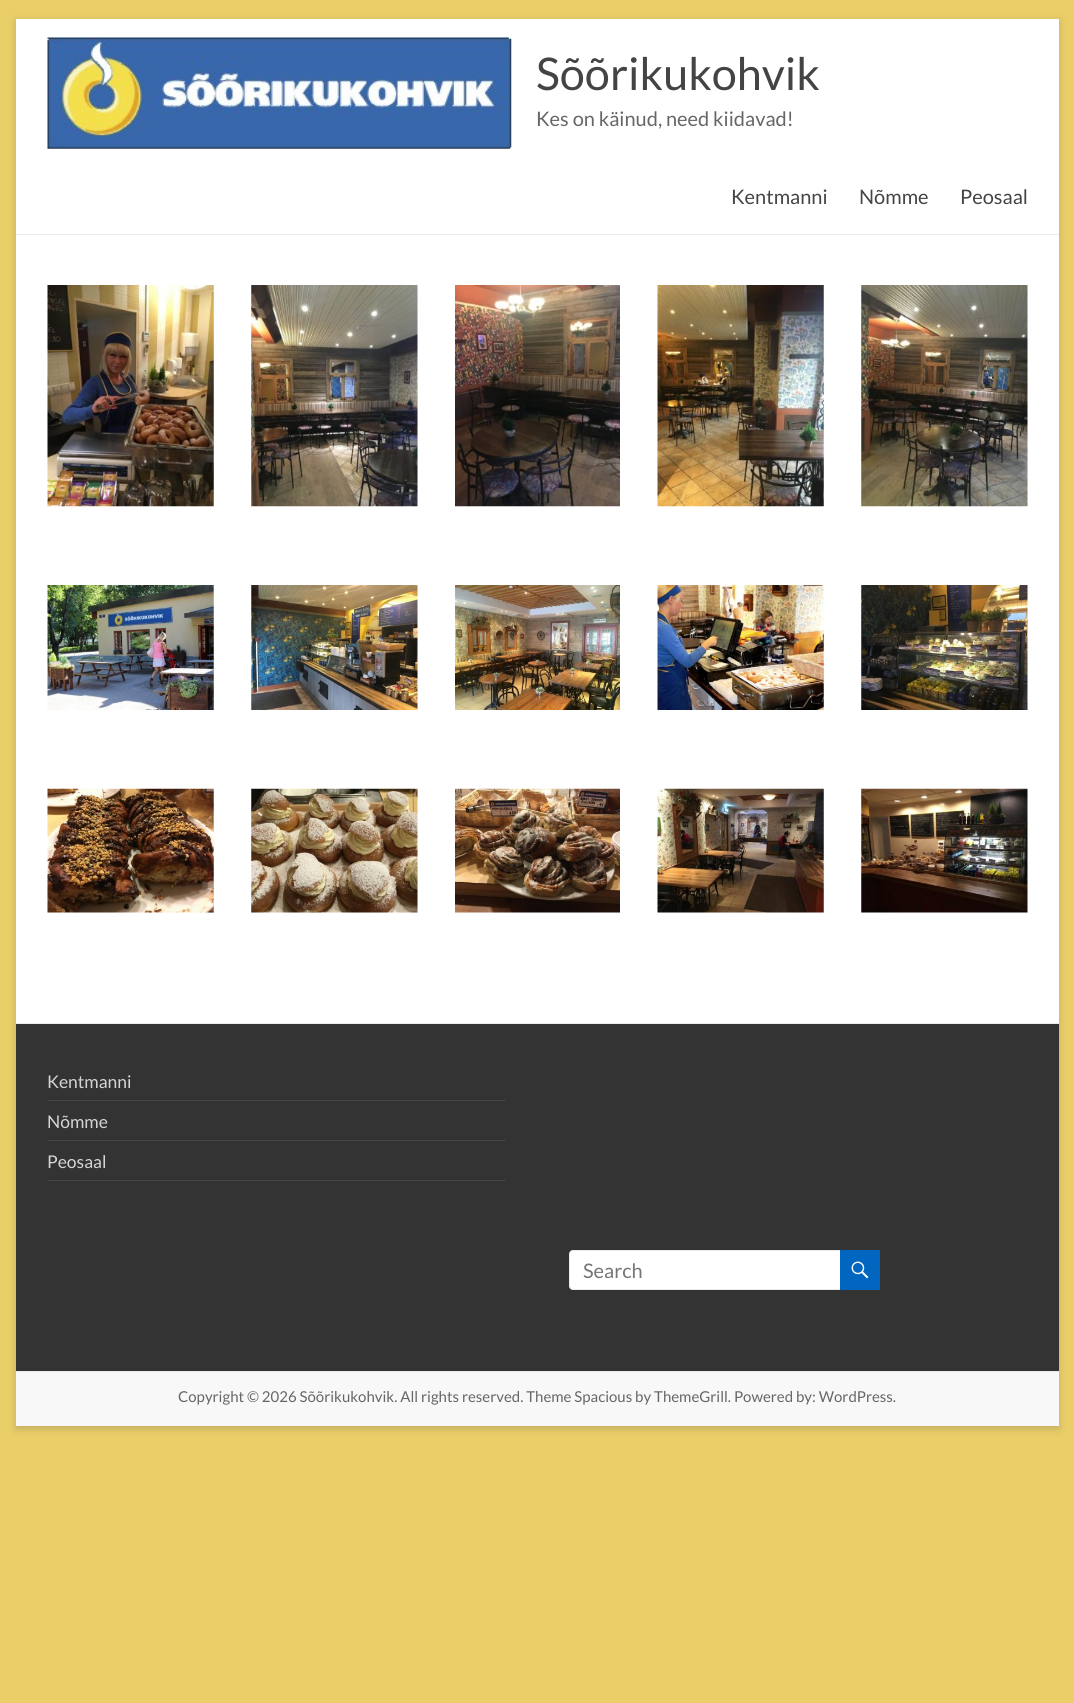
#include <cairo/cairo.h>
#include <math.h>
#include <stddef.h>


static void rounded_rect(cairo_t *cr, double x, double y, double w, double h, double r) {
  cairo_new_sub_path(cr);
  cairo_arc(cr, x + w - r, y + h - r, r, 0, M_PI / 2);
  cairo_arc(cr, x + r, y + h - r, r, M_PI / 2, M_PI);
  cairo_arc(cr, x + r, y + r, r, M_PI, 1.5 * M_PI);
  cairo_arc(cr, x + w - r, y + r, r, 1.5 * M_PI, 2 * M_PI);
  cairo_close_path(cr);
}

static void draw_shadow(cairo_t *cr, double x, double y, double w, double h, double r, double blur, double alpha) {
  cairo_push_group_with_content(cr, CAIRO_CONTENT_ALPHA);
  cairo_set_operator(cr, CAIRO_OPERATOR_SOURCE);
  for (int i = 15; i >= -15 && fmin(w, h) + blur * i / 3 > 0; i -= 2) {
    double e = blur * i / 6;
    cairo_set_source_rgba(cr, 0, 0, 0, alpha * erfc((i - 1) / 8.5) / 2);
    rounded_rect(cr, x - e, y - e, w + 2 * e, h + 2 * e, fmax(0, fmin(r + e + blur * .6, fmin(w, h) / 2 + e)));
    cairo_fill(cr);
  }
  cairo_pattern_t *soft = cairo_pop_group(cr);
  cairo_mask(cr, soft);
  cairo_pattern_destroy(soft);
}

static void draw_image(cairo_t *cr, const char *path, double x, double y, double w, double h) {
  cairo_surface_t *image = cairo_image_surface_create_from_png(path);
  cairo_save(cr);
  cairo_set_source_surface(cr, image, x, y);
  cairo_rectangle(cr, x, y, w, h);
  cairo_fill(cr);
  cairo_restore(cr);
  cairo_surface_destroy(image);
}

static void draw(cairo_t *cr) {
  cairo_set_source_rgb(cr, 234 / 255.0, 206 / 255.0, 103 / 255.0);
  cairo_paint(cr);
  cairo_set_source_rgb(cr, 100 / 255.0, 100 / 255.0, 100 / 255.0);
  draw_shadow(cr, 16, 21, 1043, 1408, 0, 4, 0.3);
  cairo_set_source_rgb(cr, 1, 1, 1);
  cairo_rectangle(cr, 16, 19, 1043, 1004);
  cairo_fill(cr);
  cairo_set_source_rgb(cr, 234 / 255.0, 234 / 255.0, 234 / 255.0);
  cairo_rectangle(cr, 16, 234, 1043, 1);
  cairo_fill(cr);
  draw_image(cr, "images/1.png", 47, 37, 465, 112);
  draw_image(cr, "images/2.png", 47, 285, 167, 222);
  draw_image(cr, "images/3.png", 47, 585, 167, 125);
  draw_image(cr, "images/4.png", 47, 788, 167, 125);
  draw_image(cr, "images/5.png", 251, 285, 167, 222);
  draw_image(cr, "images/6.png", 251, 585, 167, 125);
  draw_image(cr, "images/7.png", 251, 788, 167, 125);
  draw_image(cr, "images/8.png", 455, 285, 165, 222);
  draw_image(cr, "images/9.png", 455, 585, 165, 125);
  draw_image(cr, "images/10.png", 455, 788, 165, 125);
  draw_image(cr, "images/11.png", 657, 285, 167, 222);
  draw_image(cr, "images/12.png", 657, 585, 167, 125);
  draw_image(cr, "images/13.png", 657, 788, 167, 125);
  draw_image(cr, "images/14.png", 861, 285, 167, 222);
  draw_image(cr, "images/15.png", 861, 585, 167, 125);
  draw_image(cr, "images/16.png", 861, 788, 167, 125);
  cairo_set_source_rgb(cr, 51 / 255.0, 51 / 255.0, 51 / 255.0);
  cairo_rectangle(cr, 16, 1024, 1043, 347);
  cairo_fill(cr);
  cairo_set_source_rgb(cr, 234 / 255.0, 234 / 255.0, 234 / 255.0);
  cairo_rectangle(cr, 16, 1023, 1043, 1);
  cairo_fill(cr);
  cairo_set_source_rgb(cr, 68 / 255.0, 68 / 255.0, 68 / 255.0);
  cairo_rectangle(cr, 48, 1100, 458, 1);
  cairo_fill(cr);
  cairo_rectangle(cr, 48, 1140, 458, 1);
  cairo_fill(cr);
  cairo_rectangle(cr, 48, 1180, 458, 1);
  cairo_fill(cr);
  cairo_set_source_rgb(cr, 1, 1, 1);
  rounded_rect(cr, 569.5, 1250.5, 274, 39, 3.5);
  cairo_fill_preserve(cr);
  cairo_set_source_rgb(cr, 234 / 255.0, 234 / 255.0, 234 / 255.0);
  cairo_set_line_width(cr, 1);
  cairo_stroke(cr);
  cairo_set_source_rgb(cr, 0, 102 / 255.0, 191 / 255.0);
  cairo_rectangle(cr, 840, 1250, 40, 40);
  cairo_fill(cr);
  draw_image(cr, "images/17.png", 851, 1261, 18, 18);
  cairo_set_source_rgb(cr, 248 / 255.0, 248 / 255.0, 248 / 255.0);
  cairo_rectangle(cr, 16, 1372, 1043, 54);
  cairo_fill(cr);
  cairo_set_source_rgb(cr, 234 / 255.0, 234 / 255.0, 234 / 255.0);
  cairo_rectangle(cr, 16, 1371, 1043, 1);
  cairo_fill(cr);
  cairo_select_font_face(cr, "Lato", CAIRO_FONT_SLANT_NORMAL, CAIRO_FONT_WEIGHT_NORMAL);
  cairo_set_font_size(cr, 45);
  cairo_set_source_rgb(cr, 68 / 255.0, 68 / 255.0, 68 / 255.0);
  cairo_move_to(cr, 536, 90);
  cairo_show_text(cr, "Sõõrikukohvik");
  cairo_set_font_size(cr, 20);
  cairo_set_source_rgb(cr, 102 / 255.0, 102 / 255.0, 102 / 255.0);
  cairo_move_to(cr, 536, 126);
  cairo_show_text(cr, "Kes on käinud, need kiidavad!");
  cairo_set_source_rgb(cr, 68 / 255.0, 68 / 255.0, 68 / 255.0);
  cairo_move_to(cr, 731, 204);
  cairo_show_text(cr, "Kentmanni");
  cairo_move_to(cr, 859, 204);
  cairo_show_text(cr, "Nõmme");
  cairo_move_to(cr, 960, 204);
  cairo_show_text(cr, "Peosaal");
  cairo_set_font_size(cr, 17.5);
  cairo_set_source_rgb(cr, 213 / 255.0, 213 / 255.0, 213 / 255.0);
  cairo_move_to(cr, 47, 1088);
  cairo_show_text(cr, "Kentmanni");
  cairo_move_to(cr, 47, 1128);
  cairo_show_text(cr, "Nõmme");
  cairo_move_to(cr, 47, 1168);
  cairo_show_text(cr, "Peosaal");
  cairo_set_font_size(cr, 20);
  cairo_set_source_rgb(cr, 117 / 255.0, 117 / 255.0, 117 / 255.0);
  cairo_move_to(cr, 583, 1278);
  cairo_show_text(cr, "Search");
  cairo_set_font_size(cr, 15);
  cairo_set_source_rgb(cr, 102 / 255.0, 102 / 255.0, 102 / 255.0);
  cairo_move_to(cr, 178, 1402);
  cairo_show_text(cr, "Copyright © 2026 Sõõrikukohvik. All rights reserved. Theme Spacious by ThemeGrill. Powered by: WordPress.");
}

int main(void) {
  cairo_surface_t *surface = cairo_image_surface_create(CAIRO_FORMAT_RGB24, 1074, 1703);
  cairo_t *cr = cairo_create(surface);
  cairo_font_options_t *options = cairo_font_options_create();
  cairo_font_options_set_hint_metrics(options, CAIRO_HINT_METRICS_OFF);
  cairo_font_options_set_hint_style(options, CAIRO_HINT_STYLE_NONE);
  cairo_set_font_options(cr, options);
  cairo_set_miter_limit(cr, 4);
  draw(cr);
  cairo_surface_write_to_png(surface, "out.png");
  cairo_font_options_destroy(options);
  cairo_destroy(cr);
  cairo_surface_destroy(surface);
  return 0;
}
